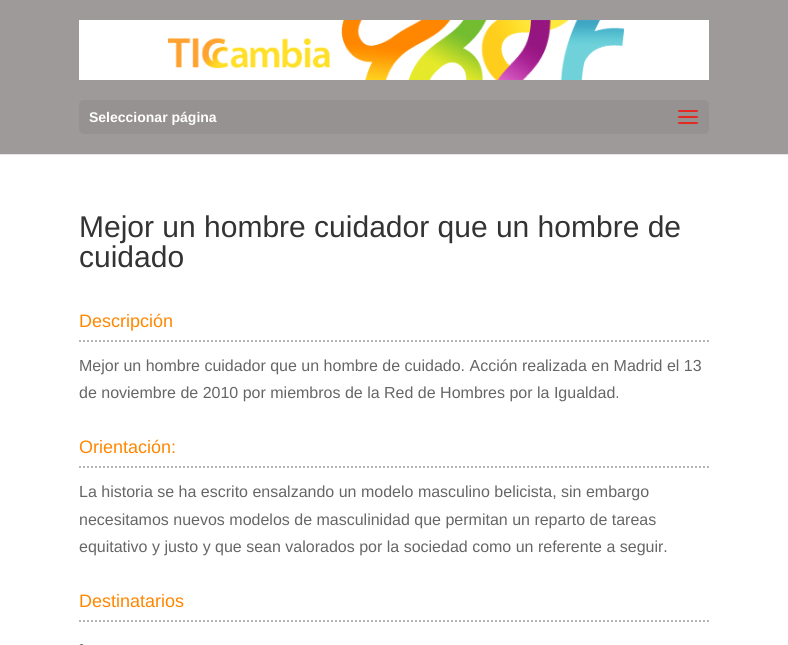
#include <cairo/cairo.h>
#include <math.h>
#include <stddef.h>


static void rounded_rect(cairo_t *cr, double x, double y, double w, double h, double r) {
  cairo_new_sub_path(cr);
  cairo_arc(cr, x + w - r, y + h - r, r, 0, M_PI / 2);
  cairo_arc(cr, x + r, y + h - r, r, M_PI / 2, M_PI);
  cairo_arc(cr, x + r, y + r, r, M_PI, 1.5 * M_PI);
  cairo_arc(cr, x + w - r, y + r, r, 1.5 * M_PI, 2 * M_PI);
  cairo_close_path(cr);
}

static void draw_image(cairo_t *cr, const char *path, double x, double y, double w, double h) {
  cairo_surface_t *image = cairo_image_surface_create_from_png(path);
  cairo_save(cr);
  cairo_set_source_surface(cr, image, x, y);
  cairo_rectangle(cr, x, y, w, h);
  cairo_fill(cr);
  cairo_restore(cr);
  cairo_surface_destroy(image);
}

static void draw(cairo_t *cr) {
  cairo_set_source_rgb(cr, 1, 1, 1);
  cairo_paint(cr);
  cairo_set_source_rgb(cr, 230 / 255.0, 230 / 255.0, 230 / 255.0);
  cairo_rectangle(cr, 0, 154, 788, 1);
  cairo_fill(cr);
  cairo_set_source_rgb(cr, 158 / 255.0, 154 / 255.0, 153 / 255.0);
  cairo_rectangle(cr, 0, 0, 788, 154);
  cairo_fill(cr);
  cairo_set_source_rgb(cr, 1, 1, 1);
  cairo_rectangle(cr, 79, 20, 630, 60);
  cairo_fill(cr);
  draw_image(cr, "images/1.png", 168, 20, 456, 60);
  cairo_set_source_rgb(cr, 150 / 255.0, 146 / 255.0, 145 / 255.0);
  rounded_rect(cr, 79, 100, 630, 34, 5);
  cairo_fill(cr);
  draw_image(cr, "images/2.png", 678, 110, 20, 14);
  cairo_new_path(cr);
  cairo_move_to(cr, 79, 341);
  cairo_line_to(cr, 709, 341);
  cairo_set_source_rgb(cr, 179 / 255.0, 183 / 255.0, 183 / 255.0);
  cairo_set_dash(cr, (double[]){2, 2}, 2, 0);
  cairo_stroke(cr);
  cairo_new_path(cr);
  cairo_move_to(cr, 79, 467);
  cairo_line_to(cr, 709, 467);
  cairo_stroke(cr);
  cairo_new_path(cr);
  cairo_move_to(cr, 79, 621);
  cairo_line_to(cr, 709, 621);
  cairo_stroke(cr);
  cairo_set_source_rgb(cr, 102 / 255.0, 102 / 255.0, 102 / 255.0);
  rounded_rect(cr, 79, 644, 5, 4, 2.5);
  cairo_fill(cr);
  cairo_select_font_face(cr, "Liberation Sans", CAIRO_FONT_SLANT_NORMAL, CAIRO_FONT_WEIGHT_BOLD);
  cairo_set_font_size(cr, 14);
  cairo_set_source_rgb(cr, 1, 1, 1);
  cairo_move_to(cr, 89, 122);
  cairo_show_text(cr, "Seleccionar página");
  cairo_select_font_face(cr, "Liberation Sans", CAIRO_FONT_SLANT_NORMAL, CAIRO_FONT_WEIGHT_NORMAL);
  cairo_set_font_size(cr, 30);
  cairo_set_source_rgb(cr, 51 / 255.0, 51 / 255.0, 51 / 255.0);
  cairo_move_to(cr, 79, 237);
  cairo_show_text(cr, "Mejor un hombre cuidador que un hombre de");
  cairo_move_to(cr, 79, 267);
  cairo_show_text(cr, "cuidado");
  cairo_set_font_size(cr, 18);
  cairo_set_source_rgb(cr, 1, 135 / 255.0, 0);
  cairo_move_to(cr, 79, 327);
  cairo_show_text(cr, "Descripción");
  cairo_set_font_size(cr, 16);
  cairo_set_source_rgb(cr, 102 / 255.0, 102 / 255.0, 102 / 255.0);
  cairo_move_to(cr, 79, 371);
  cairo_show_text(cr, "Mejor un hombre cuidador que un hombre de cuidado. Acción realizada en Madrid el 13");
  cairo_move_to(cr, 79, 398);
  cairo_show_text(cr, "de noviembre de 2010 por miembros de la Red de Hombres por la Igualdad.");
  cairo_set_font_size(cr, 18);
  cairo_set_source_rgb(cr, 1, 135 / 255.0, 0);
  cairo_move_to(cr, 79, 453);
  cairo_show_text(cr, "Orientación:");
  cairo_set_font_size(cr, 16);
  cairo_set_source_rgb(cr, 102 / 255.0, 102 / 255.0, 102 / 255.0);
  cairo_move_to(cr, 79, 497);
  cairo_show_text(cr, "La historia se ha escrito ensalzando un modelo masculino belicista, sin embargo");
  cairo_move_to(cr, 79, 525);
  cairo_show_text(cr, "necesitamos nuevos modelos de masculinidad que permitan un reparto de tareas");
  cairo_move_to(cr, 79, 552);
  cairo_show_text(cr, "equitativo y justo y que sean valorados por la sociedad como un referente a seguir.");
  cairo_set_font_size(cr, 18);
  cairo_set_source_rgb(cr, 1, 135 / 255.0, 0);
  cairo_move_to(cr, 79, 607);
  cairo_show_text(cr, "Destinatarios");
}

int main(void) {
  cairo_surface_t *surface = cairo_image_surface_create(CAIRO_FORMAT_RGB24, 788, 645);
  cairo_t *cr = cairo_create(surface);
  cairo_font_options_t *options = cairo_font_options_create();
  cairo_font_options_set_hint_metrics(options, CAIRO_HINT_METRICS_OFF);
  cairo_font_options_set_hint_style(options, CAIRO_HINT_STYLE_NONE);
  cairo_set_font_options(cr, options);
  cairo_set_miter_limit(cr, 4);
  draw(cr);
  cairo_surface_write_to_png(surface, "out.png");
  cairo_font_options_destroy(options);
  cairo_destroy(cr);
  cairo_surface_destroy(surface);
  return 0;
}
